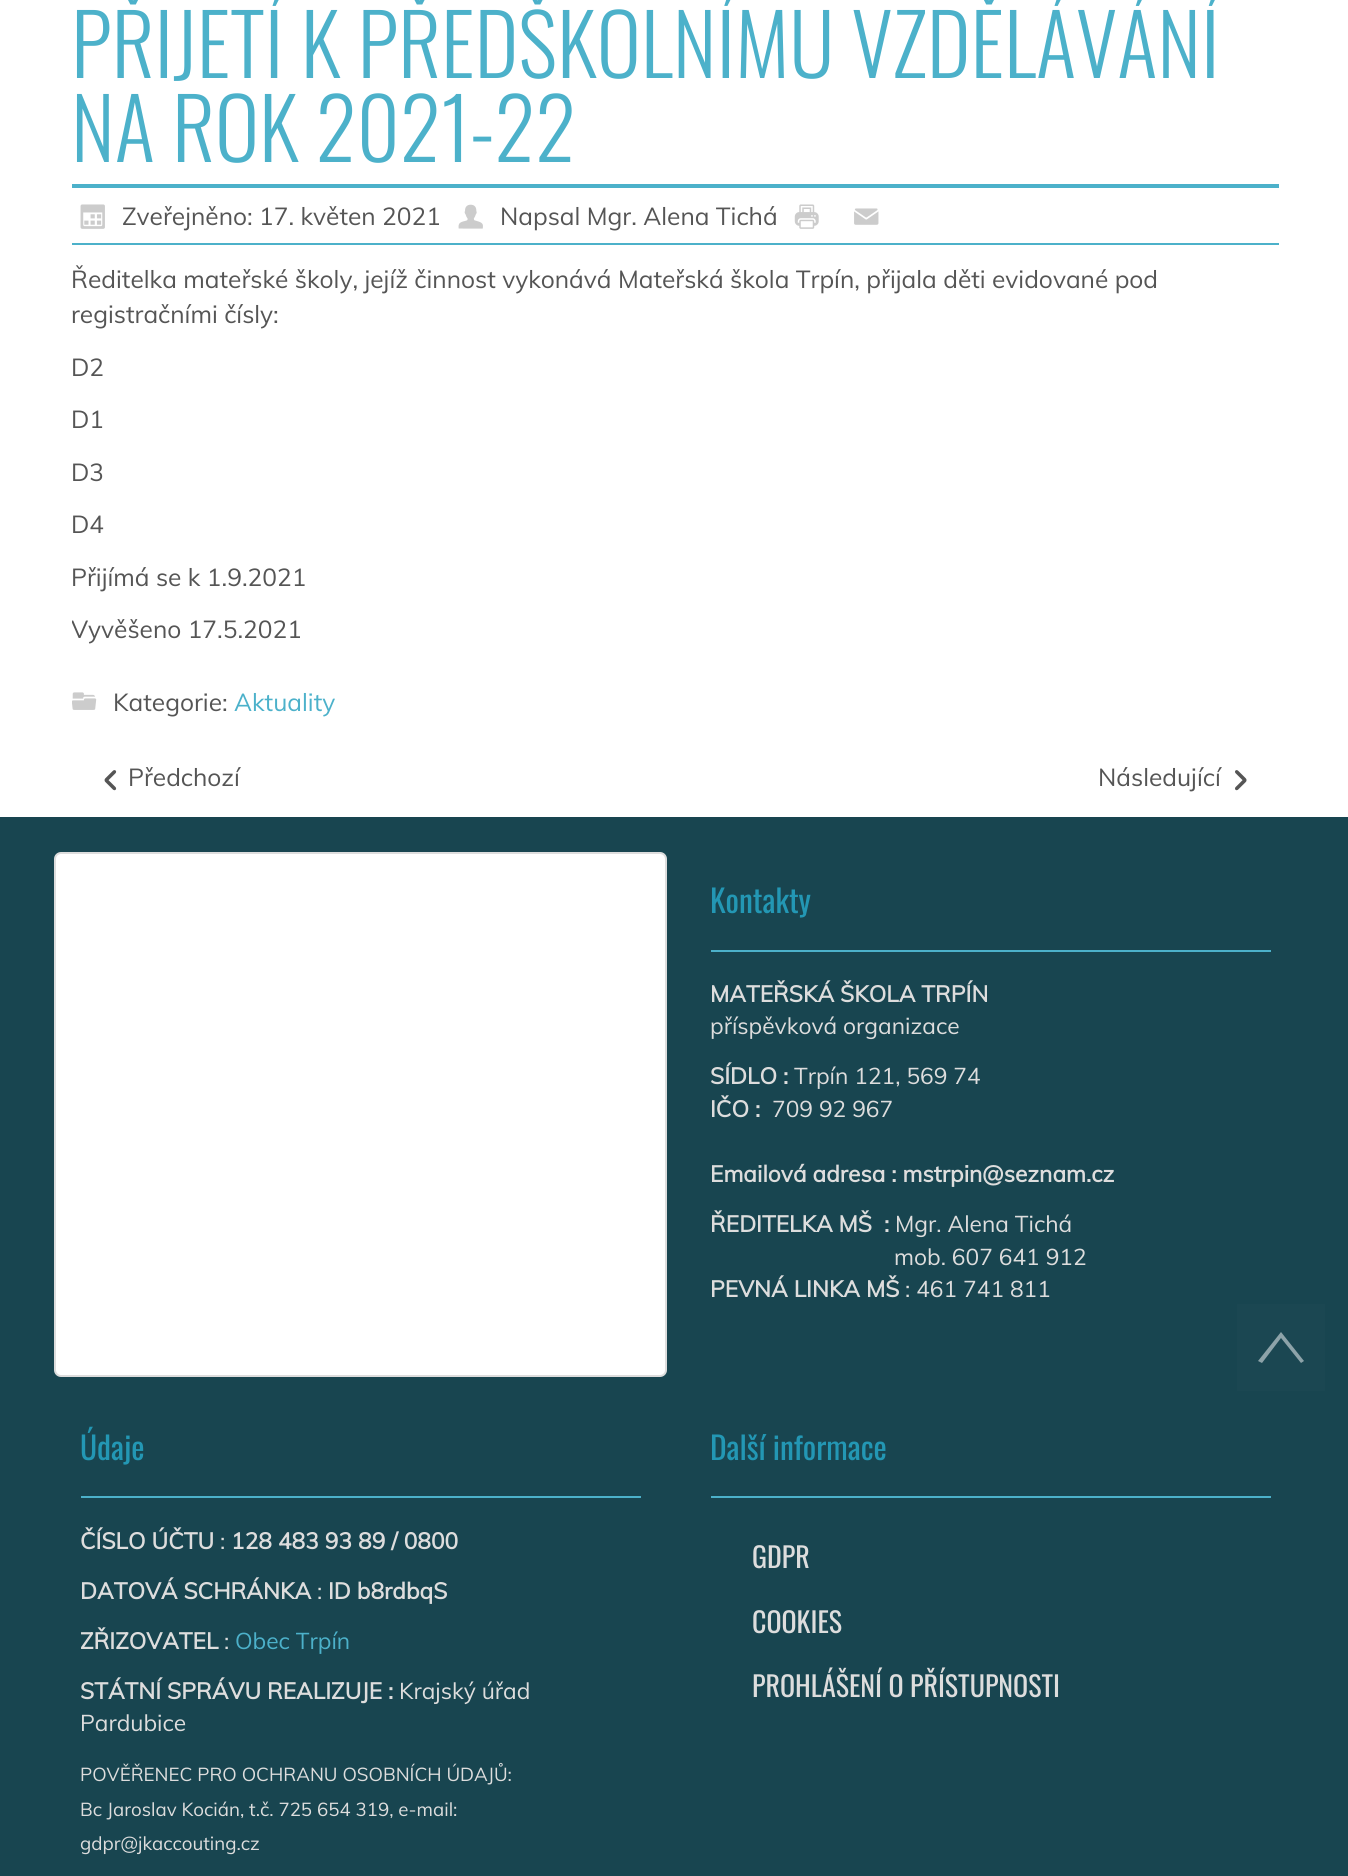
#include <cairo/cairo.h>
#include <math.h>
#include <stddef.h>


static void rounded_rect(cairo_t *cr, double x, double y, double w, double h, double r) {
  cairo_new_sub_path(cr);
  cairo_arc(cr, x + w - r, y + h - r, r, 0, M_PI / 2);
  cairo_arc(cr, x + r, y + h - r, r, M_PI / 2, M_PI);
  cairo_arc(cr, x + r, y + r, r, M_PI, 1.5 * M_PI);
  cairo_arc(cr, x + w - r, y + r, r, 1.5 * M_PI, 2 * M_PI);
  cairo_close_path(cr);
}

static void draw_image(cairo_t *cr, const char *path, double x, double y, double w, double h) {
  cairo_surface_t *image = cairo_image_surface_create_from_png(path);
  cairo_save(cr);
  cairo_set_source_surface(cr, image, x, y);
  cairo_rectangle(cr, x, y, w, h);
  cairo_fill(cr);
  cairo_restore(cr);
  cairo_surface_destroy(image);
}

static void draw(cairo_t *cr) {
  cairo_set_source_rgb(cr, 1, 1, 1);
  cairo_paint(cr);
  cairo_set_source_rgb(cr, 76 / 255.0, 177 / 255.0, 202 / 255.0);
  cairo_rectangle(cr, 72, 184, 1207, 4);
  cairo_fill(cr);
  cairo_rectangle(cr, 72, 243, 1207, 2);
  cairo_fill(cr);
  draw_image(cr, "images/1.png", 80, 204, 25, 25);
  draw_image(cr, "images/2.png", 458, 204, 25, 25);
  draw_image(cr, "images/3.png", 794, 204, 25, 25);
  draw_image(cr, "images/4.png", 854, 208, 25, 17);
  draw_image(cr, "images/5.png", 72, 692, 25, 18);
  draw_image(cr, "images/6.png", 104, 770, 13, 21);
  draw_image(cr, "images/7.png", 1235, 770, 12, 21);
  cairo_set_source_rgb(cr, 24 / 255.0, 69 / 255.0, 80 / 255.0);
  cairo_rectangle(cr, 0, 817, 1348, 1059);
  cairo_fill(cr);
  cairo_set_source_rgb(cr, 1, 1, 1);
  rounded_rect(cr, 55, 853, 611, 523, 6);
  cairo_fill_preserve(cr);
  cairo_set_source_rgb(cr, 221 / 255.0, 221 / 255.0, 221 / 255.0);
  cairo_stroke(cr);
  cairo_set_source_rgb(cr, 76 / 255.0, 177 / 255.0, 202 / 255.0);
  cairo_rectangle(cr, 711, 950, 560, 2);
  cairo_fill(cr);
  cairo_rectangle(cr, 81, 1496, 560, 2);
  cairo_fill(cr);
  cairo_rectangle(cr, 711, 1496, 560, 2);
  cairo_fill(cr);
  cairo_set_source_rgb(cr, 27 / 255.0, 71 / 255.0, 82 / 255.0);
  cairo_rectangle(cr, 1237, 1304, 88, 87);
  cairo_fill(cr);
  cairo_set_source_rgb(cr, 141 / 255.0, 163 / 255.0, 169 / 255.0);
  cairo_new_path(cr);
  cairo_move_to(cr, 1281, 1332);
  cairo_line_to(cr, 1304, 1361);
  cairo_line_to(cr, 1301, 1363);
  cairo_line_to(cr, 1281, 1338);
  cairo_line_to(cr, 1262, 1363);
  cairo_line_to(cr, 1258, 1361);
  cairo_close_path(cr);
  cairo_fill(cr);
  cairo_select_font_face(cr, "Oswald Light", CAIRO_FONT_SLANT_NORMAL, CAIRO_FONT_WEIGHT_NORMAL);
  cairo_set_font_size(cr, 84);
  cairo_set_source_rgb(cr, 76 / 255.0, 177 / 255.0, 202 / 255.0);
  cairo_move_to(cr, 71, 78);
  cairo_show_text(cr, "PŘIJETÍ K PŘEDŠKOLNÍMU VZDĚLÁVÁNÍ");
  cairo_move_to(cr, 71, 162);
  cairo_show_text(cr, "NA ROK 2021-22");
  cairo_select_font_face(cr, "Muli", CAIRO_FONT_SLANT_NORMAL, CAIRO_FONT_WEIGHT_NORMAL);
  cairo_set_font_size(cr, 24.5);
  cairo_set_source_rgb(cr, 85 / 255.0, 85 / 255.0, 85 / 255.0);
  cairo_move_to(cr, 122, 225);
  cairo_show_text(cr, "Zveřejněno: 17. květen 2021");
  cairo_move_to(cr, 500, 225);
  cairo_show_text(cr, "Napsal Mgr. Alena Tichá");
  cairo_move_to(cr, 71, 288);
  cairo_show_text(cr, "Ředitelka mateřské školy, jejíž činnost vykonává Mateřská škola Trpín, přijala děti evidované pod");
  cairo_move_to(cr, 71, 323);
  cairo_show_text(cr, "registračními čísly:");
  cairo_move_to(cr, 71, 376);
  cairo_show_text(cr, "D2");
  cairo_move_to(cr, 71, 428);
  cairo_show_text(cr, "D1");
  cairo_move_to(cr, 71, 481);
  cairo_show_text(cr, "D3");
  cairo_move_to(cr, 71, 533);
  cairo_show_text(cr, "D4");
  cairo_move_to(cr, 71, 586);
  cairo_show_text(cr, "Přijímá se k 1.9.2021");
  cairo_save(cr);
  cairo_rectangle(cr, 72, 263, 1207, 402);
  cairo_clip(cr);
  cairo_move_to(cr, 71, 638);
  cairo_show_text(cr, "Vyvěšeno 17.5.2021");
  cairo_restore(cr);
  cairo_move_to(cr, 113, 711);
  cairo_show_text(cr, "Kategorie:");
  cairo_set_source_rgb(cr, 76 / 255.0, 177 / 255.0, 202 / 255.0);
  cairo_move_to(cr, 234, 711);
  cairo_show_text(cr, "Aktuality");
  cairo_set_source_rgb(cr, 85 / 255.0, 85 / 255.0, 85 / 255.0);
  cairo_move_to(cr, 128, 786);
  cairo_show_text(cr, "Předchozí");
  cairo_move_to(cr, 1098, 786);
  cairo_show_text(cr, "Následující");
  cairo_select_font_face(cr, "Oswald", CAIRO_FONT_SLANT_NORMAL, CAIRO_FONT_WEIGHT_NORMAL);
  cairo_set_font_size(cr, 31.5);
  cairo_set_source_rgb(cr, 35 / 255.0, 151 / 255.0, 180 / 255.0);
  cairo_move_to(cr, 710, 913);
  cairo_show_text(cr, "Kontakty");
  cairo_select_font_face(cr, "Muli", CAIRO_FONT_SLANT_NORMAL, CAIRO_FONT_WEIGHT_BOLD);
  cairo_set_font_size(cr, 22.75);
  cairo_set_source_rgb(cr, 221 / 255.0, 221 / 255.0, 221 / 255.0);
  cairo_move_to(cr, 710, 1002);
  cairo_show_text(cr, "MATEŘSKÁ ŠKOLA TRPÍN");
  cairo_select_font_face(cr, "Muli", CAIRO_FONT_SLANT_NORMAL, CAIRO_FONT_WEIGHT_NORMAL);
  cairo_move_to(cr, 710, 1034);
  cairo_show_text(cr, "příspěvková organizace");
  cairo_select_font_face(cr, "Muli", CAIRO_FONT_SLANT_NORMAL, CAIRO_FONT_WEIGHT_BOLD);
  cairo_move_to(cr, 710, 1084);
  cairo_show_text(cr, "SÍDLO :");
  cairo_select_font_face(cr, "Muli", CAIRO_FONT_SLANT_NORMAL, CAIRO_FONT_WEIGHT_NORMAL);
  cairo_move_to(cr, 794, 1084);
  cairo_show_text(cr, "Trpín 121, 569 74");
  cairo_select_font_face(cr, "Muli", CAIRO_FONT_SLANT_NORMAL, CAIRO_FONT_WEIGHT_BOLD);
  cairo_move_to(cr, 710, 1117);
  cairo_show_text(cr, "IČO :");
  cairo_select_font_face(cr, "Muli", CAIRO_FONT_SLANT_NORMAL, CAIRO_FONT_WEIGHT_NORMAL);
  cairo_move_to(cr, 772, 1117);
  cairo_show_text(cr, "709 92 967");
  cairo_select_font_face(cr, "Muli", CAIRO_FONT_SLANT_NORMAL, CAIRO_FONT_WEIGHT_BOLD);
  cairo_move_to(cr, 710, 1182);
  cairo_show_text(cr, "Emailová adresa : mstrpin@seznam.cz");
  cairo_move_to(cr, 710, 1232);
  cairo_show_text(cr, "ŘEDITELKA MŠ");
  cairo_move_to(cr, 884, 1232);
  cairo_show_text(cr, ":");
  cairo_select_font_face(cr, "Muli", CAIRO_FONT_SLANT_NORMAL, CAIRO_FONT_WEIGHT_NORMAL);
  cairo_move_to(cr, 895, 1232);
  cairo_show_text(cr, "Mgr. Alena Tichá");
  cairo_move_to(cr, 894, 1265);
  cairo_show_text(cr, "mob. 607 641 912");
  cairo_select_font_face(cr, "Muli", CAIRO_FONT_SLANT_NORMAL, CAIRO_FONT_WEIGHT_BOLD);
  cairo_move_to(cr, 710, 1297);
  cairo_show_text(cr, "PEVNÁ LINKA MŠ");
  cairo_select_font_face(cr, "Muli", CAIRO_FONT_SLANT_NORMAL, CAIRO_FONT_WEIGHT_NORMAL);
  cairo_move_to(cr, 905, 1297);
  cairo_show_text(cr, ": 461 741 811");
  cairo_select_font_face(cr, "Oswald", CAIRO_FONT_SLANT_NORMAL, CAIRO_FONT_WEIGHT_NORMAL);
  cairo_set_font_size(cr, 31.5);
  cairo_set_source_rgb(cr, 35 / 255.0, 151 / 255.0, 180 / 255.0);
  cairo_move_to(cr, 80, 1460);
  cairo_show_text(cr, "Údaje");
  cairo_select_font_face(cr, "Muli", CAIRO_FONT_SLANT_NORMAL, CAIRO_FONT_WEIGHT_BOLD);
  cairo_set_font_size(cr, 22.75);
  cairo_set_source_rgb(cr, 221 / 255.0, 221 / 255.0, 221 / 255.0);
  cairo_move_to(cr, 80, 1549);
  cairo_show_text(cr, "ČÍSLO ÚČTU");
  cairo_select_font_face(cr, "Muli", CAIRO_FONT_SLANT_NORMAL, CAIRO_FONT_WEIGHT_NORMAL);
  cairo_move_to(cr, 220, 1549);
  cairo_show_text(cr, ":");
  cairo_select_font_face(cr, "Muli", CAIRO_FONT_SLANT_NORMAL, CAIRO_FONT_WEIGHT_BOLD);
  cairo_move_to(cr, 231, 1549);
  cairo_show_text(cr, "128 483 93 89 / 0800");
  cairo_move_to(cr, 80, 1599);
  cairo_show_text(cr, "DATOVÁ SCHRÁNKA");
  cairo_select_font_face(cr, "Muli", CAIRO_FONT_SLANT_NORMAL, CAIRO_FONT_WEIGHT_NORMAL);
  cairo_move_to(cr, 317, 1599);
  cairo_show_text(cr, ":");
  cairo_select_font_face(cr, "Muli", CAIRO_FONT_SLANT_NORMAL, CAIRO_FONT_WEIGHT_BOLD);
  cairo_move_to(cr, 328, 1599);
  cairo_show_text(cr, "ID b8rdbqS");
  cairo_move_to(cr, 80, 1649);
  cairo_show_text(cr, "ZŘIZOVATEL");
  cairo_select_font_face(cr, "Muli", CAIRO_FONT_SLANT_NORMAL, CAIRO_FONT_WEIGHT_NORMAL);
  cairo_move_to(cr, 224, 1649);
  cairo_show_text(cr, ":");
  cairo_set_source_rgb(cr, 76 / 255.0, 177 / 255.0, 202 / 255.0);
  cairo_move_to(cr, 235, 1649);
  cairo_show_text(cr, "Obec Trpín");
  cairo_select_font_face(cr, "Muli", CAIRO_FONT_SLANT_NORMAL, CAIRO_FONT_WEIGHT_BOLD);
  cairo_set_source_rgb(cr, 221 / 255.0, 221 / 255.0, 221 / 255.0);
  cairo_move_to(cr, 80, 1699);
  cairo_show_text(cr, "STÁTNÍ SPRÁVU REALIZUJE :");
  cairo_select_font_face(cr, "Muli", CAIRO_FONT_SLANT_NORMAL, CAIRO_FONT_WEIGHT_NORMAL);
  cairo_move_to(cr, 399, 1699);
  cairo_show_text(cr, "Krajský úřad");
  cairo_move_to(cr, 80, 1731);
  cairo_show_text(cr, "Pardubice");
  cairo_set_font_size(cr, 18.7);
  cairo_move_to(cr, 80, 1781);
  cairo_show_text(cr, "POVĚŘENEC PRO OCHRANU OSOBNÍCH ÚDAJŮ:");
  cairo_move_to(cr, 80, 1816);
  cairo_show_text(cr, "Bc Jaroslav Kocián, t.č. 725 654 319, e-mail:");
  cairo_move_to(cr, 80, 1850);
  cairo_show_text(cr, "gdpr@jkaccouting.cz");
  cairo_select_font_face(cr, "Oswald", CAIRO_FONT_SLANT_NORMAL, CAIRO_FONT_WEIGHT_NORMAL);
  cairo_set_font_size(cr, 31.5);
  cairo_set_source_rgb(cr, 35 / 255.0, 151 / 255.0, 180 / 255.0);
  cairo_move_to(cr, 710, 1460);
  cairo_show_text(cr, "Další informace");
  cairo_set_font_size(cr, 28);
  cairo_set_source_rgb(cr, 221 / 255.0, 221 / 255.0, 221 / 255.0);
  cairo_move_to(cr, 752, 1568);
  cairo_show_text(cr, "GDPR");
  cairo_move_to(cr, 752, 1633);
  cairo_show_text(cr, "COOKIES");
  cairo_move_to(cr, 752, 1697);
  cairo_show_text(cr, "PROHLÁŠENÍ O PŘÍSTUPNOSTI");
}

int main(void) {
  cairo_surface_t *surface = cairo_image_surface_create(CAIRO_FORMAT_RGB24, 1348, 1876);
  cairo_t *cr = cairo_create(surface);
  cairo_font_options_t *options = cairo_font_options_create();
  cairo_font_options_set_hint_metrics(options, CAIRO_HINT_METRICS_OFF);
  cairo_font_options_set_hint_style(options, CAIRO_HINT_STYLE_NONE);
  cairo_set_font_options(cr, options);
  cairo_set_miter_limit(cr, 4);
  draw(cr);
  cairo_surface_write_to_png(surface, "out.png");
  cairo_font_options_destroy(options);
  cairo_destroy(cr);
  cairo_surface_destroy(surface);
  return 0;
}
